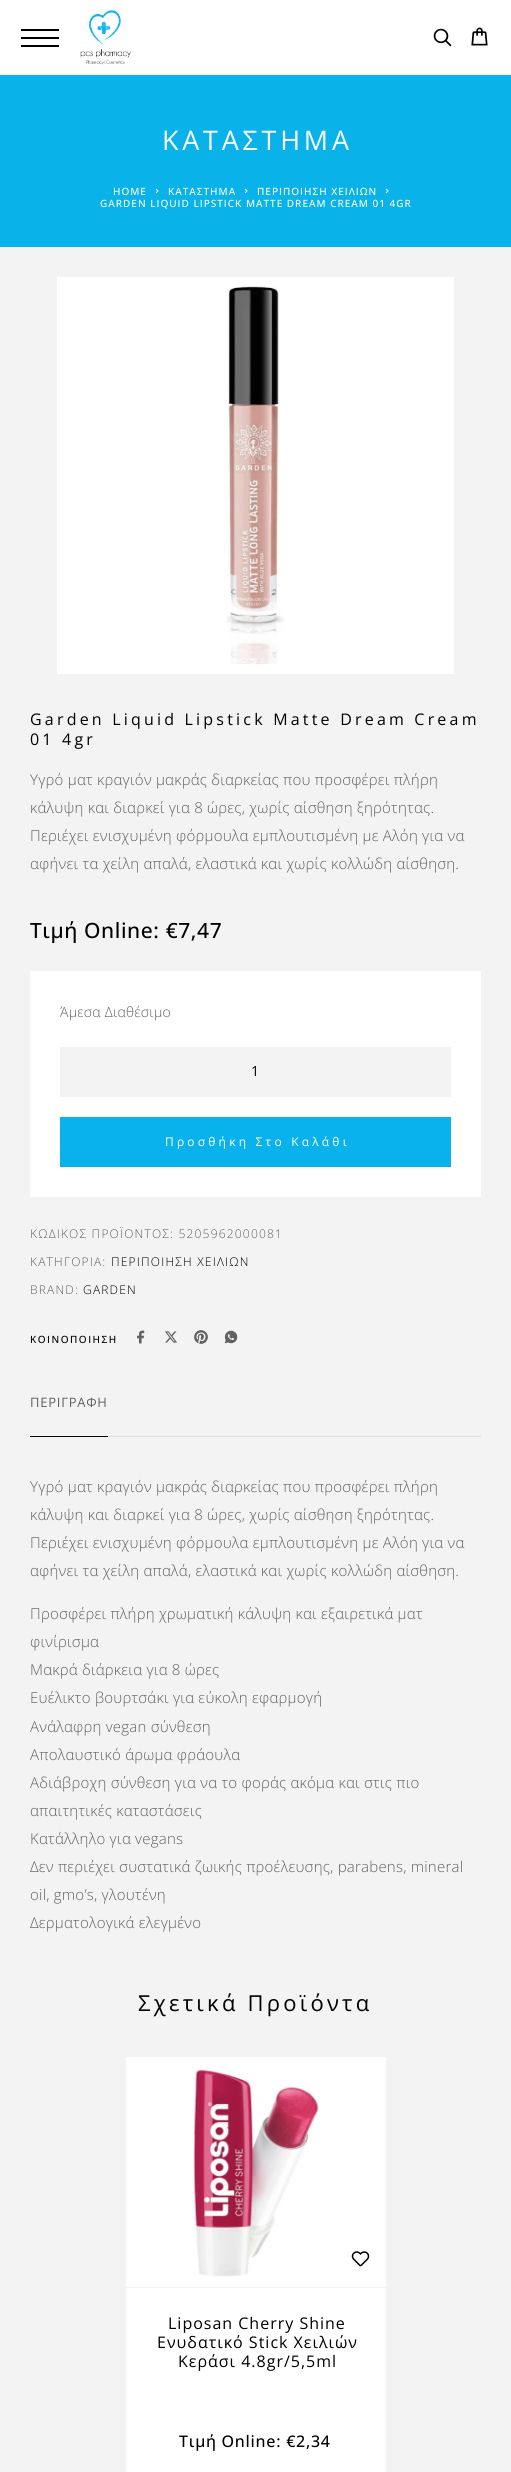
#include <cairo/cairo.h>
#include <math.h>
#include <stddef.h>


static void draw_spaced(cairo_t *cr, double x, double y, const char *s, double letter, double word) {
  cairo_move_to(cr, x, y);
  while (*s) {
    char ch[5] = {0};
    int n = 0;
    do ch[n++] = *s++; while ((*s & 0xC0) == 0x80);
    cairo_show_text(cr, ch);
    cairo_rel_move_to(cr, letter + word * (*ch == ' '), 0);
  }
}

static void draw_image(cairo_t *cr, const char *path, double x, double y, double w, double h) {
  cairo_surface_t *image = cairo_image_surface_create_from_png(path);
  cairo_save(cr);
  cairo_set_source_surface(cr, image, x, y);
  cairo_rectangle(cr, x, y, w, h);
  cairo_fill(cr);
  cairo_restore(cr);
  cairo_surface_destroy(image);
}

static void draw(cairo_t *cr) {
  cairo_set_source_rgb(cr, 243 / 255.0, 243 / 255.0, 243 / 255.0);
  cairo_paint(cr);
  cairo_set_source_rgb(cr, 1, 1, 1);
  cairo_rectangle(cr, 0, 0, 511, 75);
  cairo_fill(cr);
  cairo_set_source_rgb(cr, 0, 0, 0);
  cairo_new_path(cr);
  cairo_move_to(cr, 59, 45);
  cairo_line_to(cr, 59, 47);
  cairo_line_to(cr, 21, 47);
  cairo_line_to(cr, 21, 45);
  cairo_close_path(cr);
  cairo_move_to(cr, 59, 37);
  cairo_line_to(cr, 59, 39);
  cairo_line_to(cr, 21, 39);
  cairo_line_to(cr, 21, 37);
  cairo_close_path(cr);
  cairo_move_to(cr, 59, 29);
  cairo_line_to(cr, 59, 31);
  cairo_line_to(cr, 21, 31);
  cairo_line_to(cr, 21, 29);
  cairo_close_path(cr);
  cairo_fill(cr);
  draw_image(cr, "images/1.png", 80, 10, 51, 55);
  draw_image(cr, "images/2.png", 433, 28, 19, 19);
  draw_image(cr, "images/3.png", 471, 27, 17, 19);
  cairo_set_source_rgb(cr, 9 / 255.0, 178 / 255.0, 232 / 255.0);
  cairo_rectangle(cr, 0, 75, 511, 172);
  cairo_fill(cr);
  draw_image(cr, "images/4.png", 155, 188, 4, 6);
  draw_image(cr, "images/4.png", 244, 188, 4, 6);
  draw_image(cr, "images/4.png", 385, 188, 4, 6);
  draw_image(cr, "images/5.png", 57, 277, 397, 397);
  cairo_set_source_rgb(cr, 1, 1, 1);
  cairo_rectangle(cr, 30, 971, 451, 226);
  cairo_fill(cr);
  cairo_set_source_rgb(cr, 243 / 255.0, 243 / 255.0, 243 / 255.0);
  cairo_rectangle(cr, 60, 1047, 391, 50);
  cairo_fill(cr);
  cairo_set_source_rgb(cr, 9 / 255.0, 178 / 255.0, 235 / 255.0);
  cairo_rectangle(cr, 60, 1117, 391, 50);
  cairo_fill(cr);
  draw_image(cr, "images/6.png", 137, 1330, 8, 14);
  draw_image(cr, "images/7.png", 165, 1331, 12, 12);
  draw_image(cr, "images/8.png", 194, 1330, 14, 14);
  draw_image(cr, "images/9.png", 224, 1330, 14, 14);
  cairo_set_source_rgb(cr, 0, 0, 0);
  cairo_rectangle(cr, 30, 1436, 78, 1);
  cairo_fill(cr);
  cairo_set_source_rgb(cr, 222 / 255.0, 222 / 255.0, 222 / 255.0);
  cairo_rectangle(cr, 108, 1436, 373, 1);
  cairo_fill(cr);
  cairo_set_source_rgb(cr, 1, 1, 1);
  cairo_rectangle(cr, 126, 2057, 260, 230);
  cairo_fill(cr);
  draw_image(cr, "images/10.png", 193, 2069, 126, 208);
  draw_image(cr, "images/11.png", 351, 2251, 19, 16);
  cairo_rectangle(cr, 126, 2288, 260, 184);
  cairo_fill(cr);
  cairo_select_font_face(cr, "Open Sans", CAIRO_FONT_SLANT_NORMAL, CAIRO_FONT_WEIGHT_NORMAL);
  cairo_set_font_size(cr, 27);
  draw_spaced(cr, 162, 150, "ΚΑΤΑΣΤΗΜΑ", 3.75, 0);
  cairo_select_font_face(cr, "Open Sans Medium", CAIRO_FONT_SLANT_NORMAL, CAIRO_FONT_WEIGHT_NORMAL);
  cairo_set_font_size(cr, 10);
  draw_spaced(cr, 113, 195, "HOME", 1, 0);
  draw_spaced(cr, 168, 195, "ΚΑΤΑΣΤΗΜΑ", 1, 0);
  draw_spaced(cr, 257, 195, "ΠΕΡΙΠΟΙΗΣΗ ΧΕΙΛΙΩΝ", 1, 0);
  draw_spaced(cr, 100, 207, "GARDEN LIQUID LIPSTICK MATTE DREAM CREAM 01 4GR", 1, 0);
  cairo_select_font_face(cr, "Open Sans", CAIRO_FONT_SLANT_NORMAL, CAIRO_FONT_WEIGHT_NORMAL);
  cairo_set_font_size(cr, 16);
  cairo_set_source_rgb(cr, 0, 0, 0);
  draw_spaced(cr, 30, 725, "Garden Liquid Lipstick Matte Dream Cream", 3.2, 0);
  draw_spaced(cr, 30, 745, "01 4gr", 3.2, 0);
  cairo_select_font_face(cr, "Open Sans Light", CAIRO_FONT_SLANT_NORMAL, CAIRO_FONT_WEIGHT_NORMAL);
  cairo_set_font_size(cr, 15);
  cairo_set_source_rgb(cr, 97 / 255.0, 97 / 255.0, 97 / 255.0);
  draw_spaced(cr, 30, 785, "Υγρό ματ κραγιόν μακράς διαρκείας που προσφέρει πλήρη", 0.23, 0);
  draw_spaced(cr, 30, 813, "κάλυψη και διαρκεί για 8 ώρες, χωρίς αίσθηση ξηρότητας.", 0.23, 0);
  draw_spaced(cr, 30, 841, "Περιέχει ενισχυμένη φόρμουλα εμπλουτισμένη με Αλόη για να", 0.23, 0);
  draw_spaced(cr, 30, 869, "αφήνει τα χείλη απαλά, ελαστικά και χωρίς κολλώδη αίσθηση.", 0.23, 0);
  cairo_select_font_face(cr, "Open Sans Medium", CAIRO_FONT_SLANT_NORMAL, CAIRO_FONT_WEIGHT_NORMAL);
  cairo_set_font_size(cr, 21);
  cairo_set_source_rgb(cr, 0, 0, 0);
  draw_spaced(cr, 30, 938, "Τιμή Online: €7,47", 0.6, 0);
  cairo_select_font_face(cr, "Open Sans Light", CAIRO_FONT_SLANT_NORMAL, CAIRO_FONT_WEIGHT_NORMAL);
  cairo_set_font_size(cr, 14);
  cairo_set_source_rgb(cr, 97 / 255.0, 97 / 255.0, 97 / 255.0);
  draw_spaced(cr, 60, 1017, "Άμεσα Διαθέσιμο", 0.25, 0);
  cairo_select_font_face(cr, "Open Sans", CAIRO_FONT_SLANT_NORMAL, CAIRO_FONT_WEIGHT_NORMAL);
  cairo_set_source_rgb(cr, 0, 0, 0);
  cairo_move_to(cr, 251, 1076);
  cairo_show_text(cr, "1");
  cairo_set_font_size(cr, 12);
  cairo_set_source_rgb(cr, 1, 1, 1);
  draw_spaced(cr, 165, 1146, "Προσθήκη Στο Καλάθι", 3.2, 0);
  cairo_select_font_face(cr, "Open Sans Light", CAIRO_FONT_SLANT_NORMAL, CAIRO_FONT_WEIGHT_NORMAL);
  cairo_set_source_rgb(cr, 97 / 255.0, 97 / 255.0, 97 / 255.0);
  draw_spaced(cr, 30, 1238, "ΚΩΔΙΚΟΣ ΠΡΟΪΟΝΤΟΣ: 5205962000081", 1.2, 0);
  draw_spaced(cr, 30, 1266, "ΚΑΤΗΓΟΡΙΑ:", 1.2, 0);
  cairo_set_source_rgb(cr, 0, 0, 0);
  draw_spaced(cr, 111, 1266, "ΠΕΡΙΠΟΙΗΣΗ ΧΕΙΛΙΩΝ", 1.2, 0);
  cairo_set_source_rgb(cr, 97 / 255.0, 97 / 255.0, 97 / 255.0);
  draw_spaced(cr, 30, 1294, "BRAND:", 1.2, 0);
  cairo_set_source_rgb(cr, 0, 0, 0);
  draw_spaced(cr, 83, 1294, "GARDEN", 1.2, 0);
  cairo_select_font_face(cr, "Open Sans Medium", CAIRO_FONT_SLANT_NORMAL, CAIRO_FONT_WEIGHT_NORMAL);
  cairo_set_font_size(cr, 10);
  draw_spaced(cr, 30, 1343, "ΚΟΙΝΟΠΟΙΗΣΗ", 1.5, 0);
  cairo_select_font_face(cr, "Open Sans", CAIRO_FONT_SLANT_NORMAL, CAIRO_FONT_WEIGHT_NORMAL);
  cairo_set_font_size(cr, 13);
  cairo_set_source_rgb(cr, 97 / 255.0, 97 / 255.0, 97 / 255.0);
  draw_spaced(cr, 30, 1407, "ΠΕΡΙΓΡΑΦΗ", 0.75, 0);
  cairo_select_font_face(cr, "Open Sans Light", CAIRO_FONT_SLANT_NORMAL, CAIRO_FONT_WEIGHT_NORMAL);
  cairo_set_font_size(cr, 15);
  draw_spaced(cr, 30, 1492, "Υγρό ματ κραγιόν μακράς διαρκείας που προσφέρει πλήρη", 0.23, 0);
  draw_spaced(cr, 30, 1520, "κάλυψη και διαρκεί για 8 ώρες, χωρίς αίσθηση ξηρότητας.", 0.23, 0);
  draw_spaced(cr, 30, 1548, "Περιέχει ενισχυμένη φόρμουλα εμπλουτισμένη με Αλόη για να", 0.23, 0);
  draw_spaced(cr, 30, 1576, "αφήνει τα χείλη απαλά, ελαστικά και χωρίς κολλώδη αίσθηση.", 0.23, 0);
  draw_spaced(cr, 30, 1619, "Προσφέρει πλήρη χρωματική κάλυψη και εξαιρετικά ματ", 0.23, 0);
  draw_spaced(cr, 30, 1647, "φινίρισμα", 0.23, 0);
  draw_spaced(cr, 30, 1675, "Μακρά διάρκεια για 8 ώρες", 0.23, 0);
  draw_spaced(cr, 30, 1703, "Ευέλικτο βουρτσάκι για εύκολη εφαρμογή", 0.23, 0);
  draw_spaced(cr, 30, 1732, "Ανάλαφρη vegan σύνθεση", 0.23, 0);
  draw_spaced(cr, 30, 1760, "Απολαυστικό άρωμα φράουλα", 0.23, 0);
  draw_spaced(cr, 30, 1788, "Αδιάβροχη σύνθεση για να το φοράς ακόμα και στις πιο", 0.23, 0);
  draw_spaced(cr, 30, 1816, "απαιτητικές καταστάσεις", 0.23, 0);
  draw_spaced(cr, 30, 1844, "Κατάλληλο για vegans", 0.23, 0);
  draw_spaced(cr, 30, 1872, "Δεν περιέχει συστατικά ζωικής προέλευσης, parabens, mineral", 0.23, 0);
  draw_spaced(cr, 30, 1900, "oil, gmo’s, γλουτένη", 0.23, 0);
  draw_spaced(cr, 30, 1928, "Δερματολογικά ελεγμένο", 0.23, 0);
  cairo_select_font_face(cr, "Open Sans", CAIRO_FONT_SLANT_NORMAL, CAIRO_FONT_WEIGHT_NORMAL);
  cairo_set_font_size(cr, 22);
  cairo_set_source_rgb(cr, 0, 0, 0);
  draw_spaced(cr, 138, 2011, "Σχετικά Προϊόντα", 3.25, 0);
  cairo_set_font_size(cr, 16);
  draw_spaced(cr, 168, 2329, "Liposan Cherry Shine", 1, 0);
  draw_spaced(cr, 157, 2348, "Ενυδατικό Stick Χειλιών", 1, 0);
  draw_spaced(cr, 178, 2367, "Κεράσι 4.8gr/5,5ml", 1, 0);
  cairo_select_font_face(cr, "Open Sans Medium", CAIRO_FONT_SLANT_NORMAL, CAIRO_FONT_WEIGHT_NORMAL);
  draw_spaced(cr, 179, 2447, "Τιμή Online: €2,34", 0.75, 0);
}

int main(void) {
  cairo_surface_t *surface = cairo_image_surface_create(CAIRO_FORMAT_RGB24, 511, 2472);
  cairo_t *cr = cairo_create(surface);
  cairo_font_options_t *options = cairo_font_options_create();
  cairo_font_options_set_hint_metrics(options, CAIRO_HINT_METRICS_OFF);
  cairo_font_options_set_hint_style(options, CAIRO_HINT_STYLE_NONE);
  cairo_set_font_options(cr, options);
  cairo_set_miter_limit(cr, 4);
  draw(cr);
  cairo_surface_write_to_png(surface, "out.png");
  cairo_font_options_destroy(options);
  cairo_destroy(cr);
  cairo_surface_destroy(surface);
  return 0;
}
